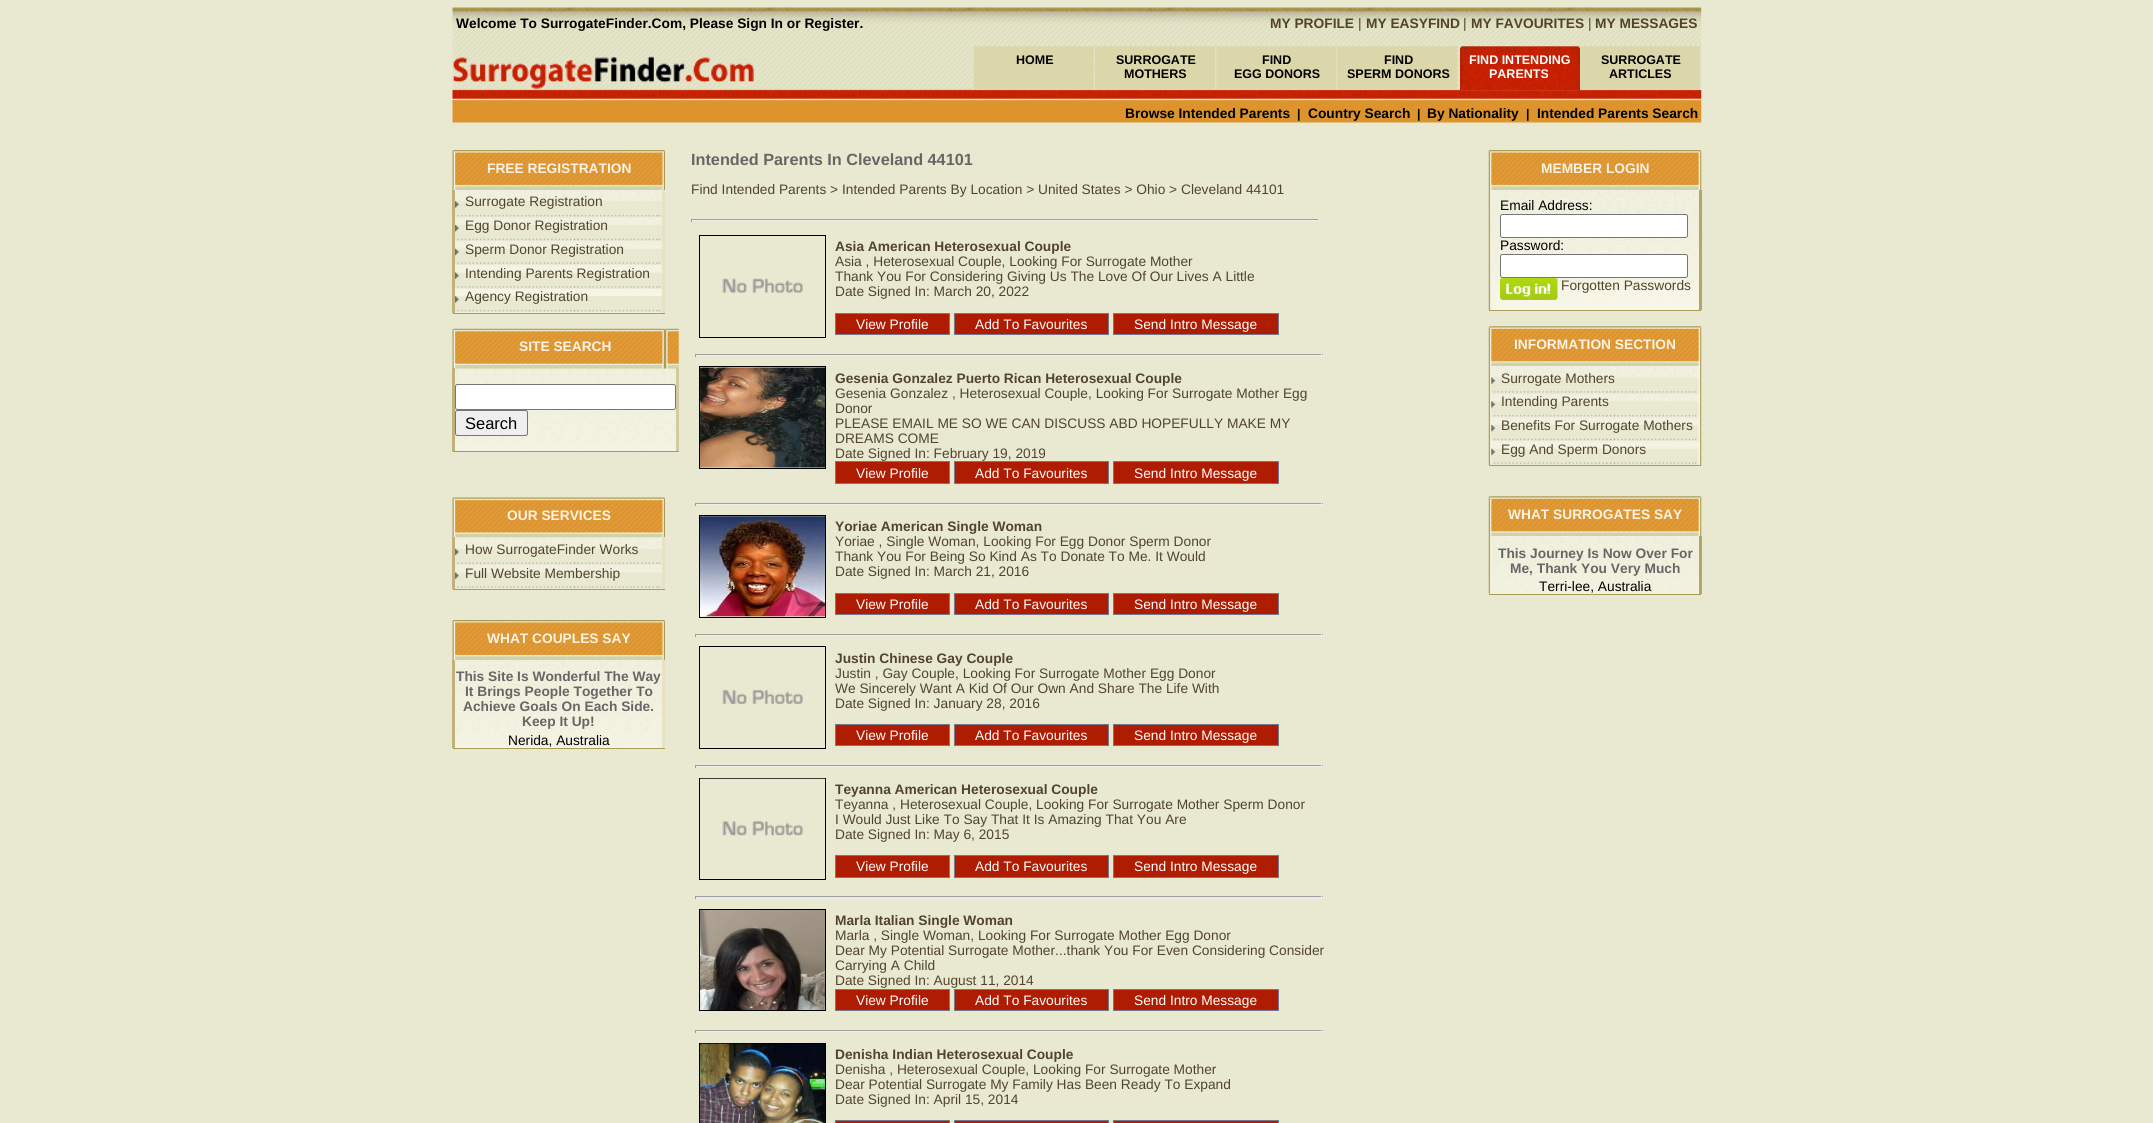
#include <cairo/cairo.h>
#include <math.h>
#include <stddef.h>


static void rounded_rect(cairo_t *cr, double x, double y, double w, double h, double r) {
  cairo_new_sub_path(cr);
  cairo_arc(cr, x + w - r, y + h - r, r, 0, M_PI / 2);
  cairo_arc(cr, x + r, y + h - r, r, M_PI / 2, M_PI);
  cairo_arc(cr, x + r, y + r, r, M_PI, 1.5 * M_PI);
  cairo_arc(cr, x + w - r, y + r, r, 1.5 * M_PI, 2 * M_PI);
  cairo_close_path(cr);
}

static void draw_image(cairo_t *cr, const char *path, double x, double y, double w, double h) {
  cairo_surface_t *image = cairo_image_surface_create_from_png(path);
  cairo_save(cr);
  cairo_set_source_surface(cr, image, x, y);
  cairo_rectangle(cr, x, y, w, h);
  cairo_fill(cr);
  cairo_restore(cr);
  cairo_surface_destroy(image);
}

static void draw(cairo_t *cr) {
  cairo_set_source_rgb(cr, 233 / 255.0, 233 / 255.0, 209 / 255.0);
  cairo_paint(cr);
  draw_image(cr, "images/1.png", 452, 7, 1250, 116);
  draw_image(cr, "images/2.png", 452, 56, 302, 33);
  draw_image(cr, "images/3.png", 973, 45, 122, 45);
  draw_image(cr, "images/4.png", 1095, 45, 122, 45);
  draw_image(cr, "images/5.png", 1216, 45, 122, 45);
  draw_image(cr, "images/6.png", 1337, 45, 122, 45);
  draw_image(cr, "images/7.png", 1460, 45, 120, 45);
  draw_image(cr, "images/8.png", 1580, 45, 122, 45);
  draw_image(cr, "images/9.png", 452, 150, 213, 40);
  cairo_set_source_rgb(cr, 191 / 255.0, 178 / 255.0, 122 / 255.0);
  cairo_rectangle(cr, 452, 190, 3, 123);
  cairo_fill(cr);
  cairo_set_source_rgb(cr, 250 / 255.0, 248 / 255.0, 235 / 255.0);
  cairo_rectangle(cr, 455, 312, 207, 1);
  cairo_fill(cr);
  draw_image(cr, "images/10.png", 455, 190, 207, 107);
  draw_image(cr, "images/11.png", 455, 201, 207, 17);
  draw_image(cr, "images/12.png", 455, 225, 207, 17);
  draw_image(cr, "images/13.png", 455, 248, 207, 17);
  draw_image(cr, "images/14.png", 455, 272, 207, 17);
  draw_image(cr, "images/15.png", 455, 296, 207, 17);
  cairo_set_source_rgb(cr, 231 / 255.0, 225 / 255.0, 198 / 255.0);
  cairo_rectangle(cr, 662, 190, 3, 123);
  cairo_fill(cr);
  cairo_set_source_rgb(cr, 172 / 255.0, 155 / 255.0, 85 / 255.0);
  cairo_rectangle(cr, 453, 313, 212, 1);
  cairo_fill(cr);
  draw_image(cr, "images/16.png", 452, 328, 227, 41);
  cairo_set_source_rgb(cr, 191 / 255.0, 178 / 255.0, 122 / 255.0);
  cairo_rectangle(cr, 452, 368, 3, 84);
  cairo_fill(cr);
  draw_image(cr, "images/17.png", 455, 368, 221, 83);
  cairo_set_source_rgb(cr, 1, 1, 1);
  rounded_rect(cr, 455.5, 384.5, 220, 25, 2);
  cairo_fill_preserve(cr);
  cairo_set_source_rgb(cr, 118 / 255.0, 118 / 255.0, 118 / 255.0);
  cairo_set_line_width(cr, 1);
  cairo_stroke(cr);
  cairo_set_source_rgb(cr, 239 / 255.0, 239 / 255.0, 239 / 255.0);
  rounded_rect(cr, 455.5, 410.5, 72, 25, 2);
  cairo_fill_preserve(cr);
  cairo_set_source_rgb(cr, 118 / 255.0, 118 / 255.0, 118 / 255.0);
  cairo_stroke(cr);
  cairo_set_source_rgb(cr, 211 / 255.0, 202 / 255.0, 160 / 255.0);
  cairo_rectangle(cr, 676, 368, 3, 84);
  cairo_fill(cr);
  cairo_set_source_rgb(cr, 172 / 255.0, 155 / 255.0, 85 / 255.0);
  cairo_rectangle(cr, 453, 451, 226, 1);
  cairo_fill(cr);
  draw_image(cr, "images/18.png", 452, 497, 213, 41);
  cairo_set_source_rgb(cr, 191 / 255.0, 178 / 255.0, 122 / 255.0);
  cairo_rectangle(cr, 452, 537, 3, 52);
  cairo_fill(cr);
  draw_image(cr, "images/19.png", 455, 537, 207, 52);
  draw_image(cr, "images/20.png", 455, 548, 207, 17);
  draw_image(cr, "images/21.png", 455, 572, 207, 17);
  cairo_set_source_rgb(cr, 231 / 255.0, 225 / 255.0, 198 / 255.0);
  cairo_rectangle(cr, 662, 537, 3, 52);
  cairo_fill(cr);
  cairo_set_source_rgb(cr, 172 / 255.0, 155 / 255.0, 85 / 255.0);
  cairo_rectangle(cr, 453, 589, 212, 1);
  cairo_fill(cr);
  draw_image(cr, "images/9.png", 452, 620, 213, 40);
  cairo_set_source_rgb(cr, 191 / 255.0, 178 / 255.0, 122 / 255.0);
  cairo_rectangle(cr, 452, 660, 3, 88);
  cairo_fill(cr);
  cairo_set_source_rgb(cr, 250 / 255.0, 248 / 255.0, 235 / 255.0);
  cairo_rectangle(cr, 455, 747, 207, 1);
  cairo_fill(cr);
  draw_image(cr, "images/22.png", 455, 660, 207, 88);
  cairo_set_source_rgb(cr, 231 / 255.0, 225 / 255.0, 198 / 255.0);
  cairo_rectangle(cr, 662, 660, 3, 88);
  cairo_fill(cr);
  cairo_set_source_rgb(cr, 172 / 255.0, 155 / 255.0, 85 / 255.0);
  cairo_rectangle(cr, 453, 748, 212, 1);
  cairo_fill(cr);
  cairo_set_source_rgb(cr, 159 / 255.0, 159 / 255.0, 159 / 255.0);
  cairo_rectangle(cr, 691, 219, 628, 1);
  cairo_fill(cr);
  cairo_set_source_rgb(cr, 238 / 255.0, 238 / 255.0, 238 / 255.0);
  cairo_rectangle(cr, 1318, 219, 1, 3);
  cairo_fill(cr);
  cairo_rectangle(cr, 691, 220, 628, 1);
  cairo_fill(cr);
  cairo_set_source_rgb(cr, 159 / 255.0, 159 / 255.0, 159 / 255.0);
  cairo_rectangle(cr, 691, 219, 1, 3);
  cairo_fill(cr);
  cairo_rectangle(cr, 699.5, 235.5, 126, 102);
  cairo_set_source_rgb(cr, 0, 0, 0);
  cairo_stroke(cr);
  draw_image(cr, "images/23.png", 722, 278, 81, 15);
  cairo_set_source_rgb(cr, 174 / 255.0, 28 / 255.0, 2 / 255.0);
  cairo_rectangle(cr, 835.5, 313.5, 114, 21);
  cairo_fill_preserve(cr);
  cairo_set_source_rgb(cr, 119 / 255.0, 119 / 255.0, 136 / 255.0);
  cairo_stroke(cr);
  cairo_set_source_rgb(cr, 174 / 255.0, 28 / 255.0, 2 / 255.0);
  cairo_rectangle(cr, 954.5, 313.5, 154, 21);
  cairo_fill_preserve(cr);
  cairo_set_source_rgb(cr, 119 / 255.0, 119 / 255.0, 136 / 255.0);
  cairo_stroke(cr);
  cairo_set_source_rgb(cr, 174 / 255.0, 28 / 255.0, 2 / 255.0);
  cairo_rectangle(cr, 1113.5, 313.5, 165, 21);
  cairo_fill_preserve(cr);
  cairo_set_source_rgb(cr, 119 / 255.0, 119 / 255.0, 136 / 255.0);
  cairo_stroke(cr);
  cairo_set_source_rgb(cr, 159 / 255.0, 159 / 255.0, 159 / 255.0);
  cairo_rectangle(cr, 695, 354, 628, 1);
  cairo_fill(cr);
  cairo_set_source_rgb(cr, 238 / 255.0, 238 / 255.0, 238 / 255.0);
  cairo_rectangle(cr, 1321, 354, 1, 3);
  cairo_fill(cr);
  cairo_rectangle(cr, 695, 355, 628, 1);
  cairo_fill(cr);
  cairo_set_source_rgb(cr, 159 / 255.0, 159 / 255.0, 159 / 255.0);
  cairo_rectangle(cr, 695, 354, 1, 3);
  cairo_fill(cr);
  cairo_rectangle(cr, 699.5, 366.5, 126, 102);
  cairo_set_source_rgb(cr, 0, 0, 0);
  cairo_stroke(cr);
  draw_image(cr, "images/24.png", 700, 367, 125, 101);
  cairo_set_source_rgb(cr, 174 / 255.0, 28 / 255.0, 2 / 255.0);
  cairo_rectangle(cr, 835.5, 461.5, 114, 22);
  cairo_fill_preserve(cr);
  cairo_set_source_rgb(cr, 119 / 255.0, 119 / 255.0, 136 / 255.0);
  cairo_stroke(cr);
  cairo_set_source_rgb(cr, 174 / 255.0, 28 / 255.0, 2 / 255.0);
  cairo_rectangle(cr, 954.5, 461.5, 154, 22);
  cairo_fill_preserve(cr);
  cairo_set_source_rgb(cr, 119 / 255.0, 119 / 255.0, 136 / 255.0);
  cairo_stroke(cr);
  cairo_set_source_rgb(cr, 174 / 255.0, 28 / 255.0, 2 / 255.0);
  cairo_rectangle(cr, 1113.5, 461.5, 165, 22);
  cairo_fill_preserve(cr);
  cairo_set_source_rgb(cr, 119 / 255.0, 119 / 255.0, 136 / 255.0);
  cairo_stroke(cr);
  cairo_set_source_rgb(cr, 159 / 255.0, 159 / 255.0, 159 / 255.0);
  cairo_rectangle(cr, 695, 503, 628, 1);
  cairo_fill(cr);
  cairo_set_source_rgb(cr, 238 / 255.0, 238 / 255.0, 238 / 255.0);
  cairo_rectangle(cr, 1321, 503, 1, 3);
  cairo_fill(cr);
  cairo_rectangle(cr, 695, 504, 628, 1);
  cairo_fill(cr);
  cairo_set_source_rgb(cr, 159 / 255.0, 159 / 255.0, 159 / 255.0);
  cairo_rectangle(cr, 695, 503, 1, 3);
  cairo_fill(cr);
  cairo_rectangle(cr, 699.5, 515.5, 126, 102);
  cairo_set_source_rgb(cr, 0, 0, 0);
  cairo_stroke(cr);
  draw_image(cr, "images/25.png", 700, 516, 125, 101);
  cairo_set_source_rgb(cr, 174 / 255.0, 28 / 255.0, 2 / 255.0);
  cairo_rectangle(cr, 835.5, 593.5, 114, 21);
  cairo_fill_preserve(cr);
  cairo_set_source_rgb(cr, 119 / 255.0, 119 / 255.0, 136 / 255.0);
  cairo_stroke(cr);
  cairo_set_source_rgb(cr, 174 / 255.0, 28 / 255.0, 2 / 255.0);
  cairo_rectangle(cr, 954.5, 593.5, 154, 21);
  cairo_fill_preserve(cr);
  cairo_set_source_rgb(cr, 119 / 255.0, 119 / 255.0, 136 / 255.0);
  cairo_stroke(cr);
  cairo_set_source_rgb(cr, 174 / 255.0, 28 / 255.0, 2 / 255.0);
  cairo_rectangle(cr, 1113.5, 593.5, 165, 21);
  cairo_fill_preserve(cr);
  cairo_set_source_rgb(cr, 119 / 255.0, 119 / 255.0, 136 / 255.0);
  cairo_stroke(cr);
  cairo_set_source_rgb(cr, 159 / 255.0, 159 / 255.0, 159 / 255.0);
  cairo_rectangle(cr, 695, 634, 628, 1);
  cairo_fill(cr);
  cairo_set_source_rgb(cr, 238 / 255.0, 238 / 255.0, 238 / 255.0);
  cairo_rectangle(cr, 1321, 634, 1, 3);
  cairo_fill(cr);
  cairo_rectangle(cr, 695, 635, 628, 1);
  cairo_fill(cr);
  cairo_set_source_rgb(cr, 159 / 255.0, 159 / 255.0, 159 / 255.0);
  cairo_rectangle(cr, 695, 634, 1, 3);
  cairo_fill(cr);
  cairo_rectangle(cr, 699.5, 646.5, 126, 102);
  cairo_set_source_rgb(cr, 0, 0, 0);
  cairo_stroke(cr);
  draw_image(cr, "images/26.png", 722, 690, 81, 14);
  cairo_set_source_rgb(cr, 174 / 255.0, 28 / 255.0, 2 / 255.0);
  cairo_rectangle(cr, 835.5, 724.5, 114, 21);
  cairo_fill_preserve(cr);
  cairo_set_source_rgb(cr, 119 / 255.0, 119 / 255.0, 136 / 255.0);
  cairo_stroke(cr);
  cairo_set_source_rgb(cr, 174 / 255.0, 28 / 255.0, 2 / 255.0);
  cairo_rectangle(cr, 954.5, 724.5, 154, 21);
  cairo_fill_preserve(cr);
  cairo_set_source_rgb(cr, 119 / 255.0, 119 / 255.0, 136 / 255.0);
  cairo_stroke(cr);
  cairo_set_source_rgb(cr, 174 / 255.0, 28 / 255.0, 2 / 255.0);
  cairo_rectangle(cr, 1113.5, 724.5, 165, 21);
  cairo_fill_preserve(cr);
  cairo_set_source_rgb(cr, 119 / 255.0, 119 / 255.0, 136 / 255.0);
  cairo_stroke(cr);
  cairo_set_source_rgb(cr, 159 / 255.0, 159 / 255.0, 159 / 255.0);
  cairo_rectangle(cr, 695, 765, 628, 1);
  cairo_fill(cr);
  cairo_set_source_rgb(cr, 238 / 255.0, 238 / 255.0, 238 / 255.0);
  cairo_rectangle(cr, 1321, 765, 1, 3);
  cairo_fill(cr);
  cairo_rectangle(cr, 695, 766, 628, 1);
  cairo_fill(cr);
  cairo_set_source_rgb(cr, 159 / 255.0, 159 / 255.0, 159 / 255.0);
  cairo_rectangle(cr, 695, 765, 1, 3);
  cairo_fill(cr);
  cairo_rectangle(cr, 699.5, 778.5, 126, 101);
  cairo_set_source_rgb(cr, 0, 0, 0);
  cairo_stroke(cr);
  draw_image(cr, "images/27.png", 700, 778, 125, 58);
  cairo_set_source_rgb(cr, 174 / 255.0, 28 / 255.0, 2 / 255.0);
  cairo_rectangle(cr, 835.5, 855.5, 114, 22);
  cairo_fill_preserve(cr);
  cairo_set_source_rgb(cr, 119 / 255.0, 119 / 255.0, 136 / 255.0);
  cairo_stroke(cr);
  cairo_set_source_rgb(cr, 174 / 255.0, 28 / 255.0, 2 / 255.0);
  cairo_rectangle(cr, 954.5, 855.5, 154, 22);
  cairo_fill_preserve(cr);
  cairo_set_source_rgb(cr, 119 / 255.0, 119 / 255.0, 136 / 255.0);
  cairo_stroke(cr);
  cairo_set_source_rgb(cr, 174 / 255.0, 28 / 255.0, 2 / 255.0);
  cairo_rectangle(cr, 1113.5, 855.5, 165, 22);
  cairo_fill_preserve(cr);
  cairo_set_source_rgb(cr, 119 / 255.0, 119 / 255.0, 136 / 255.0);
  cairo_stroke(cr);
  cairo_set_source_rgb(cr, 159 / 255.0, 159 / 255.0, 159 / 255.0);
  cairo_rectangle(cr, 695, 896, 628, 1);
  cairo_fill(cr);
  cairo_set_source_rgb(cr, 238 / 255.0, 238 / 255.0, 238 / 255.0);
  cairo_rectangle(cr, 1321, 896, 1, 3);
  cairo_fill(cr);
  cairo_rectangle(cr, 695, 898, 628, 1);
  cairo_fill(cr);
  cairo_set_source_rgb(cr, 159 / 255.0, 159 / 255.0, 159 / 255.0);
  cairo_rectangle(cr, 695, 896, 1, 3);
  cairo_fill(cr);
  cairo_rectangle(cr, 699.5, 909.5, 126, 101);
  cairo_set_source_rgb(cr, 0, 0, 0);
  cairo_stroke(cr);
  draw_image(cr, "images/28.png", 700, 910, 125, 100);
  cairo_set_source_rgb(cr, 174 / 255.0, 28 / 255.0, 2 / 255.0);
  cairo_rectangle(cr, 835.5, 989.5, 114, 21);
  cairo_fill_preserve(cr);
  cairo_set_source_rgb(cr, 119 / 255.0, 119 / 255.0, 136 / 255.0);
  cairo_stroke(cr);
  cairo_set_source_rgb(cr, 174 / 255.0, 28 / 255.0, 2 / 255.0);
  cairo_rectangle(cr, 954.5, 989.5, 154, 21);
  cairo_fill_preserve(cr);
  cairo_set_source_rgb(cr, 119 / 255.0, 119 / 255.0, 136 / 255.0);
  cairo_stroke(cr);
  cairo_set_source_rgb(cr, 174 / 255.0, 28 / 255.0, 2 / 255.0);
  cairo_rectangle(cr, 1113.5, 989.5, 165, 21);
  cairo_fill_preserve(cr);
  cairo_set_source_rgb(cr, 119 / 255.0, 119 / 255.0, 136 / 255.0);
  cairo_stroke(cr);
  cairo_set_source_rgb(cr, 159 / 255.0, 159 / 255.0, 159 / 255.0);
  cairo_rectangle(cr, 695, 1030, 628, 1);
  cairo_fill(cr);
  cairo_set_source_rgb(cr, 238 / 255.0, 238 / 255.0, 238 / 255.0);
  cairo_rectangle(cr, 1321, 1030, 1, 3);
  cairo_fill(cr);
  cairo_rectangle(cr, 695, 1031, 628, 1);
  cairo_fill(cr);
  cairo_set_source_rgb(cr, 159 / 255.0, 159 / 255.0, 159 / 255.0);
  cairo_rectangle(cr, 695, 1030, 1, 3);
  cairo_fill(cr);
  cairo_rectangle(cr, 699.5, 1043.5, 126, 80);
  cairo_set_source_rgb(cr, 0, 0, 0);
  cairo_stroke(cr);
  draw_image(cr, "images/29.png", 700, 1043, 125, 80);
  cairo_set_source_rgb(cr, 174 / 255.0, 28 / 255.0, 2 / 255.0);
  cairo_rectangle(cr, 835.5, 1120.5, 114, 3);
  cairo_fill_preserve(cr);
  cairo_set_source_rgb(cr, 119 / 255.0, 119 / 255.0, 136 / 255.0);
  cairo_stroke(cr);
  cairo_set_source_rgb(cr, 174 / 255.0, 28 / 255.0, 2 / 255.0);
  cairo_rectangle(cr, 954.5, 1120.5, 154, 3);
  cairo_fill_preserve(cr);
  cairo_set_source_rgb(cr, 119 / 255.0, 119 / 255.0, 136 / 255.0);
  cairo_stroke(cr);
  cairo_set_source_rgb(cr, 174 / 255.0, 28 / 255.0, 2 / 255.0);
  cairo_rectangle(cr, 1113.5, 1120.5, 165, 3);
  cairo_fill_preserve(cr);
  cairo_set_source_rgb(cr, 119 / 255.0, 119 / 255.0, 136 / 255.0);
  cairo_stroke(cr);
  draw_image(cr, "images/30.png", 1488, 150, 214, 40);
  draw_image(cr, "images/31.png", 1488, 190, 4, 120);
  draw_image(cr, "images/32.png", 1491, 190, 208, 120);
  cairo_set_source_rgb(cr, 1, 1, 1);
  rounded_rect(cr, 1500.5, 214.5, 187, 23, 2);
  cairo_fill_preserve(cr);
  cairo_set_source_rgb(cr, 118 / 255.0, 118 / 255.0, 118 / 255.0);
  cairo_stroke(cr);
  draw_image(cr, "images/33.png", 1500, 277, 58, 23);
  cairo_set_source_rgb(cr, 1, 1, 1);
  rounded_rect(cr, 1500.5, 254.5, 187, 23, 2);
  cairo_fill_preserve(cr);
  cairo_set_source_rgb(cr, 118 / 255.0, 118 / 255.0, 118 / 255.0);
  cairo_stroke(cr);
  cairo_set_source_rgb(cr, 181 / 255.0, 166 / 255.0, 103 / 255.0);
  cairo_rectangle(cr, 1699, 190, 3, 120);
  cairo_fill(cr);
  cairo_set_source_rgb(cr, 172 / 255.0, 155 / 255.0, 85 / 255.0);
  cairo_rectangle(cr, 1489, 310, 212, 1);
  cairo_fill(cr);
  draw_image(cr, "images/34.png", 1488, 326, 214, 41);
  draw_image(cr, "images/35.png", 1488, 366, 3, 99);
  cairo_set_source_rgb(cr, 250 / 255.0, 248 / 255.0, 235 / 255.0);
  cairo_rectangle(cr, 1491, 366, 208, 99);
  cairo_fill(cr);
  draw_image(cr, "images/36.png", 1491, 366, 208, 99);
  draw_image(cr, "images/37.png", 1491, 377, 208, 17);
  draw_image(cr, "images/38.png", 1491, 401, 208, 17);
  draw_image(cr, "images/39.png", 1491, 425, 208, 17);
  draw_image(cr, "images/40.png", 1491, 448, 208, 17);
  draw_image(cr, "images/41.png", 1698, 366, 4, 99);
  cairo_set_source_rgb(cr, 172 / 255.0, 155 / 255.0, 85 / 255.0);
  cairo_rectangle(cr, 1489, 465, 212, 1);
  cairo_fill(cr);
  draw_image(cr, "images/34.png", 1488, 496, 214, 41);
  draw_image(cr, "images/42.png", 1488, 536, 3, 58);
  cairo_set_source_rgb(cr, 250 / 255.0, 248 / 255.0, 235 / 255.0);
  cairo_rectangle(cr, 1491, 536, 208, 58);
  cairo_fill(cr);
  draw_image(cr, "images/43.png", 1491, 536, 208, 58);
  cairo_set_source_rgb(cr, 181 / 255.0, 166 / 255.0, 103 / 255.0);
  cairo_rectangle(cr, 1699, 536, 3, 58);
  cairo_fill(cr);
  cairo_set_source_rgb(cr, 172 / 255.0, 155 / 255.0, 85 / 255.0);
  cairo_rectangle(cr, 1489, 594, 212, 1);
  cairo_fill(cr);
  cairo_select_font_face(cr, "Liberation Sans", CAIRO_FONT_SLANT_NORMAL, CAIRO_FONT_WEIGHT_BOLD);
  cairo_set_font_size(cr, 13.75);
  cairo_set_source_rgb(cr, 0, 0, 0);
  cairo_move_to(cr, 456, 28);
  cairo_show_text(cr, "Welcome To SurrogateFinder.Com, Please Sign In or Register.");
  cairo_set_source_rgb(cr, 82 / 255.0, 68 / 255.0, 44 / 255.0);
  cairo_move_to(cr, 1270, 28);
  cairo_show_text(cr, "MY PROFILE");
  cairo_select_font_face(cr, "Liberation Sans", CAIRO_FONT_SLANT_NORMAL, CAIRO_FONT_WEIGHT_NORMAL);
  cairo_move_to(cr, 1358, 28);
  cairo_show_text(cr, "|");
  cairo_select_font_face(cr, "Liberation Sans", CAIRO_FONT_SLANT_NORMAL, CAIRO_FONT_WEIGHT_BOLD);
  cairo_move_to(cr, 1366, 28);
  cairo_show_text(cr, "MY EASYFIND");
  cairo_select_font_face(cr, "Liberation Sans", CAIRO_FONT_SLANT_NORMAL, CAIRO_FONT_WEIGHT_NORMAL);
  cairo_move_to(cr, 1463, 28);
  cairo_show_text(cr, "|");
  cairo_select_font_face(cr, "Liberation Sans", CAIRO_FONT_SLANT_NORMAL, CAIRO_FONT_WEIGHT_BOLD);
  cairo_move_to(cr, 1471, 28);
  cairo_show_text(cr, "MY FAVOURITES");
  cairo_select_font_face(cr, "Liberation Sans", CAIRO_FONT_SLANT_NORMAL, CAIRO_FONT_WEIGHT_NORMAL);
  cairo_move_to(cr, 1588, 28);
  cairo_show_text(cr, "|");
  cairo_select_font_face(cr, "Liberation Sans", CAIRO_FONT_SLANT_NORMAL, CAIRO_FONT_WEIGHT_BOLD);
  cairo_move_to(cr, 1595, 28);
  cairo_show_text(cr, "MY MESSAGES");
  cairo_set_font_size(cr, 12.5);
  cairo_set_source_rgb(cr, 0, 0, 0);
  cairo_move_to(cr, 1016, 64);
  cairo_show_text(cr, "HOME");
  cairo_move_to(cr, 1116, 64);
  cairo_show_text(cr, "SURROGATE");
  cairo_move_to(cr, 1124, 78);
  cairo_show_text(cr, "MOTHERS");
  cairo_move_to(cr, 1262, 64);
  cairo_show_text(cr, "FIND");
  cairo_move_to(cr, 1234, 78);
  cairo_show_text(cr, "EGG DONORS");
  cairo_move_to(cr, 1384, 64);
  cairo_show_text(cr, "FIND");
  cairo_move_to(cr, 1347, 78);
  cairo_show_text(cr, "SPERM DONORS");
  cairo_set_source_rgb(cr, 1, 1, 1);
  cairo_move_to(cr, 1469, 64);
  cairo_show_text(cr, "FIND INTENDING");
  cairo_move_to(cr, 1489, 78);
  cairo_show_text(cr, "PARENTS");
  cairo_set_source_rgb(cr, 0, 0, 0);
  cairo_move_to(cr, 1601, 64);
  cairo_show_text(cr, "SURROGATE");
  cairo_move_to(cr, 1609, 78);
  cairo_show_text(cr, "ARTICLES");
  cairo_set_font_size(cr, 13.75);
  cairo_move_to(cr, 1125, 118);
  cairo_show_text(cr, "Browse Intended Parents");
  cairo_set_font_size(cr, 12.5);
  cairo_move_to(cr, 1297, 118);
  cairo_show_text(cr, "|");
  cairo_set_font_size(cr, 13.75);
  cairo_move_to(cr, 1308, 118);
  cairo_show_text(cr, "Country Search");
  cairo_set_font_size(cr, 12.5);
  cairo_move_to(cr, 1417, 118);
  cairo_show_text(cr, "|");
  cairo_set_font_size(cr, 13.75);
  cairo_move_to(cr, 1427, 118);
  cairo_show_text(cr, "By Nationality");
  cairo_set_font_size(cr, 12.5);
  cairo_move_to(cr, 1526, 118);
  cairo_show_text(cr, "|");
  cairo_set_font_size(cr, 13.75);
  cairo_move_to(cr, 1537, 118);
  cairo_show_text(cr, "Intended Parents Search");
  cairo_set_source_rgb(cr, 252 / 255.0, 243 / 255.0, 229 / 255.0);
  cairo_move_to(cr, 487, 173);
  cairo_show_text(cr, "FREE REGISTRATION");
  cairo_select_font_face(cr, "Liberation Sans", CAIRO_FONT_SLANT_NORMAL, CAIRO_FONT_WEIGHT_NORMAL);
  cairo_set_source_rgb(cr, 82 / 255.0, 68 / 255.0, 44 / 255.0);
  cairo_move_to(cr, 465, 206);
  cairo_show_text(cr, "Surrogate Registration");
  cairo_move_to(cr, 465, 230);
  cairo_show_text(cr, "Egg Donor Registration");
  cairo_move_to(cr, 465, 254);
  cairo_show_text(cr, "Sperm Donor Registration");
  cairo_move_to(cr, 465, 278);
  cairo_show_text(cr, "Intending Parents Registration");
  cairo_move_to(cr, 465, 301);
  cairo_show_text(cr, "Agency Registration");
  cairo_select_font_face(cr, "Liberation Sans", CAIRO_FONT_SLANT_NORMAL, CAIRO_FONT_WEIGHT_BOLD);
  cairo_set_source_rgb(cr, 252 / 255.0, 243 / 255.0, 229 / 255.0);
  cairo_move_to(cr, 519, 351);
  cairo_show_text(cr, "SITE SEARCH");
  cairo_select_font_face(cr, "Liberation Sans", CAIRO_FONT_SLANT_NORMAL, CAIRO_FONT_WEIGHT_NORMAL);
  cairo_set_font_size(cr, 16.5);
  cairo_set_source_rgb(cr, 0, 0, 0);
  cairo_move_to(cr, 465, 429);
  cairo_show_text(cr, "Search");
  cairo_select_font_face(cr, "Liberation Sans", CAIRO_FONT_SLANT_NORMAL, CAIRO_FONT_WEIGHT_BOLD);
  cairo_set_font_size(cr, 13.75);
  cairo_set_source_rgb(cr, 252 / 255.0, 243 / 255.0, 229 / 255.0);
  cairo_move_to(cr, 507, 520);
  cairo_show_text(cr, "OUR SERVICES");
  cairo_select_font_face(cr, "Liberation Sans", CAIRO_FONT_SLANT_NORMAL, CAIRO_FONT_WEIGHT_NORMAL);
  cairo_set_source_rgb(cr, 82 / 255.0, 68 / 255.0, 44 / 255.0);
  cairo_move_to(cr, 465, 554);
  cairo_show_text(cr, "How SurrogateFinder Works");
  cairo_move_to(cr, 465, 578);
  cairo_show_text(cr, "Full Website Membership");
  cairo_select_font_face(cr, "Liberation Sans", CAIRO_FONT_SLANT_NORMAL, CAIRO_FONT_WEIGHT_BOLD);
  cairo_set_source_rgb(cr, 252 / 255.0, 243 / 255.0, 229 / 255.0);
  cairo_move_to(cr, 487, 643);
  cairo_show_text(cr, "WHAT COUPLES SAY");
  cairo_set_source_rgb(cr, 102 / 255.0, 102 / 255.0, 102 / 255.0);
  cairo_move_to(cr, 456, 681);
  cairo_show_text(cr, "This Site Is Wonderful The Way");
  cairo_move_to(cr, 465, 696);
  cairo_show_text(cr, "It Brings People Together To");
  cairo_move_to(cr, 463, 711);
  cairo_show_text(cr, "Achieve Goals On Each Side.");
  cairo_move_to(cr, 522, 726);
  cairo_show_text(cr, "Keep It Up!");
  cairo_select_font_face(cr, "Liberation Sans", CAIRO_FONT_SLANT_NORMAL, CAIRO_FONT_WEIGHT_NORMAL);
  cairo_set_source_rgb(cr, 0, 0, 0);
  cairo_move_to(cr, 508, 745);
  cairo_show_text(cr, "Nerida, Australia");
  cairo_select_font_face(cr, "Liberation Sans", CAIRO_FONT_SLANT_NORMAL, CAIRO_FONT_WEIGHT_BOLD);
  cairo_set_font_size(cr, 16.25);
  cairo_set_source_rgb(cr, 102 / 255.0, 102 / 255.0, 102 / 255.0);
  cairo_move_to(cr, 691, 165);
  cairo_show_text(cr, "Intended Parents In Cleveland 44101");
  cairo_select_font_face(cr, "Liberation Sans", CAIRO_FONT_SLANT_NORMAL, CAIRO_FONT_WEIGHT_NORMAL);
  cairo_set_font_size(cr, 13.75);
  cairo_set_source_rgb(cr, 82 / 255.0, 68 / 255.0, 44 / 255.0);
  cairo_move_to(cr, 691, 194);
  cairo_show_text(cr, "Find Intended Parents > Intended Parents By Location > United States > Ohio > Cleveland 44101");
  cairo_select_font_face(cr, "Liberation Sans", CAIRO_FONT_SLANT_NORMAL, CAIRO_FONT_WEIGHT_BOLD);
  cairo_move_to(cr, 835, 251);
  cairo_show_text(cr, "Asia American Heterosexual Couple");
  cairo_select_font_face(cr, "Liberation Sans", CAIRO_FONT_SLANT_NORMAL, CAIRO_FONT_WEIGHT_NORMAL);
  cairo_move_to(cr, 835, 266);
  cairo_show_text(cr, "Asia , Heterosexual Couple, Looking For Surrogate Mother");
  cairo_move_to(cr, 835, 281);
  cairo_show_text(cr, "Thank You For Considering Giving Us The Love Of Our Lives A Little");
  cairo_move_to(cr, 835, 296);
  cairo_show_text(cr, "Date Signed In: March 20, 2022");
  cairo_set_source_rgb(cr, 1, 1, 1);
  cairo_move_to(cr, 856, 329);
  cairo_show_text(cr, "View Profile");
  cairo_move_to(cr, 975, 329);
  cairo_show_text(cr, "Add To Favourites");
  cairo_move_to(cr, 1134, 329);
  cairo_show_text(cr, "Send Intro Message");
  cairo_select_font_face(cr, "Liberation Sans", CAIRO_FONT_SLANT_NORMAL, CAIRO_FONT_WEIGHT_BOLD);
  cairo_set_source_rgb(cr, 82 / 255.0, 68 / 255.0, 44 / 255.0);
  cairo_move_to(cr, 835, 383);
  cairo_show_text(cr, "Gesenia Gonzalez Puerto Rican Heterosexual Couple");
  cairo_select_font_face(cr, "Liberation Sans", CAIRO_FONT_SLANT_NORMAL, CAIRO_FONT_WEIGHT_NORMAL);
  cairo_move_to(cr, 835, 398);
  cairo_show_text(cr, "Gesenia Gonzalez , Heterosexual Couple, Looking For Surrogate Mother Egg");
  cairo_move_to(cr, 835, 413);
  cairo_show_text(cr, "Donor");
  cairo_move_to(cr, 835, 428);
  cairo_show_text(cr, "PLEASE EMAIL ME SO WE CAN DISCUSS ABD HOPEFULLY MAKE MY");
  cairo_move_to(cr, 835, 443);
  cairo_show_text(cr, "DREAMS COME");
  cairo_move_to(cr, 835, 458);
  cairo_show_text(cr, "Date Signed In: February 19, 2019");
  cairo_set_source_rgb(cr, 1, 1, 1);
  cairo_move_to(cr, 856, 478);
  cairo_show_text(cr, "View Profile");
  cairo_move_to(cr, 975, 478);
  cairo_show_text(cr, "Add To Favourites");
  cairo_move_to(cr, 1134, 478);
  cairo_show_text(cr, "Send Intro Message");
  cairo_select_font_face(cr, "Liberation Sans", CAIRO_FONT_SLANT_NORMAL, CAIRO_FONT_WEIGHT_BOLD);
  cairo_set_source_rgb(cr, 82 / 255.0, 68 / 255.0, 44 / 255.0);
  cairo_move_to(cr, 835, 531);
  cairo_show_text(cr, "Yoriae American Single Woman");
  cairo_select_font_face(cr, "Liberation Sans", CAIRO_FONT_SLANT_NORMAL, CAIRO_FONT_WEIGHT_NORMAL);
  cairo_move_to(cr, 835, 546);
  cairo_show_text(cr, "Yoriae , Single Woman, Looking For Egg Donor Sperm Donor");
  cairo_move_to(cr, 835, 561);
  cairo_show_text(cr, "Thank You For Being So Kind As To Donate To Me. It Would");
  cairo_move_to(cr, 835, 576);
  cairo_show_text(cr, "Date Signed In: March 21, 2016");
  cairo_set_source_rgb(cr, 1, 1, 1);
  cairo_move_to(cr, 856, 609);
  cairo_show_text(cr, "View Profile");
  cairo_move_to(cr, 975, 609);
  cairo_show_text(cr, "Add To Favourites");
  cairo_move_to(cr, 1134, 609);
  cairo_show_text(cr, "Send Intro Message");
  cairo_select_font_face(cr, "Liberation Sans", CAIRO_FONT_SLANT_NORMAL, CAIRO_FONT_WEIGHT_BOLD);
  cairo_set_source_rgb(cr, 82 / 255.0, 68 / 255.0, 44 / 255.0);
  cairo_move_to(cr, 835, 663);
  cairo_show_text(cr, "Justin Chinese Gay Couple");
  cairo_select_font_face(cr, "Liberation Sans", CAIRO_FONT_SLANT_NORMAL, CAIRO_FONT_WEIGHT_NORMAL);
  cairo_move_to(cr, 835, 678);
  cairo_show_text(cr, "Justin , Gay Couple, Looking For Surrogate Mother Egg Donor");
  cairo_move_to(cr, 835, 693);
  cairo_show_text(cr, "We Sincerely Want A Kid Of Our Own And Share The Life With");
  cairo_move_to(cr, 835, 708);
  cairo_show_text(cr, "Date Signed In: January 28, 2016");
  cairo_set_source_rgb(cr, 1, 1, 1);
  cairo_move_to(cr, 856, 740);
  cairo_show_text(cr, "View Profile");
  cairo_move_to(cr, 975, 740);
  cairo_show_text(cr, "Add To Favourites");
  cairo_move_to(cr, 1134, 740);
  cairo_show_text(cr, "Send Intro Message");
  cairo_select_font_face(cr, "Liberation Sans", CAIRO_FONT_SLANT_NORMAL, CAIRO_FONT_WEIGHT_BOLD);
  cairo_set_source_rgb(cr, 82 / 255.0, 68 / 255.0, 44 / 255.0);
  cairo_move_to(cr, 835, 794);
  cairo_show_text(cr, "Teyanna American Heterosexual Couple");
  cairo_select_font_face(cr, "Liberation Sans", CAIRO_FONT_SLANT_NORMAL, CAIRO_FONT_WEIGHT_NORMAL);
  cairo_move_to(cr, 835, 809);
  cairo_show_text(cr, "Teyanna , Heterosexual Couple, Looking For Surrogate Mother Sperm Donor");
  cairo_move_to(cr, 835, 824);
  cairo_show_text(cr, "I Would Just Like To Say That It Is Amazing That You Are");
  cairo_move_to(cr, 835, 839);
  cairo_show_text(cr, "Date Signed In: May 6, 2015");
  cairo_set_source_rgb(cr, 1, 1, 1);
  cairo_move_to(cr, 856, 871);
  cairo_show_text(cr, "View Profile");
  cairo_move_to(cr, 975, 871);
  cairo_show_text(cr, "Add To Favourites");
  cairo_move_to(cr, 1134, 871);
  cairo_show_text(cr, "Send Intro Message");
  cairo_select_font_face(cr, "Liberation Sans", CAIRO_FONT_SLANT_NORMAL, CAIRO_FONT_WEIGHT_BOLD);
  cairo_set_source_rgb(cr, 82 / 255.0, 68 / 255.0, 44 / 255.0);
  cairo_move_to(cr, 835, 925);
  cairo_show_text(cr, "Marla Italian Single Woman");
  cairo_select_font_face(cr, "Liberation Sans", CAIRO_FONT_SLANT_NORMAL, CAIRO_FONT_WEIGHT_NORMAL);
  cairo_move_to(cr, 835, 940);
  cairo_show_text(cr, "Marla , Single Woman, Looking For Surrogate Mother Egg Donor");
  cairo_move_to(cr, 835, 955);
  cairo_show_text(cr, "Dear My Potential Surrogate Mother...thank You For Even Considering Consider");
  cairo_move_to(cr, 835, 970);
  cairo_show_text(cr, "Carrying A Child");
  cairo_move_to(cr, 835, 985);
  cairo_show_text(cr, "Date Signed In: August 11, 2014");
  cairo_set_source_rgb(cr, 1, 1, 1);
  cairo_move_to(cr, 856, 1005);
  cairo_show_text(cr, "View Profile");
  cairo_move_to(cr, 975, 1005);
  cairo_show_text(cr, "Add To Favourites");
  cairo_move_to(cr, 1134, 1005);
  cairo_show_text(cr, "Send Intro Message");
  cairo_select_font_face(cr, "Liberation Sans", CAIRO_FONT_SLANT_NORMAL, CAIRO_FONT_WEIGHT_BOLD);
  cairo_set_source_rgb(cr, 82 / 255.0, 68 / 255.0, 44 / 255.0);
  cairo_move_to(cr, 835, 1059);
  cairo_show_text(cr, "Denisha Indian Heterosexual Couple");
  cairo_select_font_face(cr, "Liberation Sans", CAIRO_FONT_SLANT_NORMAL, CAIRO_FONT_WEIGHT_NORMAL);
  cairo_move_to(cr, 835, 1074);
  cairo_show_text(cr, "Denisha , Heterosexual Couple, Looking For Surrogate Mother");
  cairo_move_to(cr, 835, 1089);
  cairo_show_text(cr, "Dear Potential Surrogate My Family Has Been Ready To Expand");
  cairo_move_to(cr, 835, 1104);
  cairo_show_text(cr, "Date Signed In: April 15, 2014");
  cairo_select_font_face(cr, "Liberation Sans", CAIRO_FONT_SLANT_NORMAL, CAIRO_FONT_WEIGHT_BOLD);
  cairo_set_source_rgb(cr, 252 / 255.0, 243 / 255.0, 229 / 255.0);
  cairo_move_to(cr, 1541, 173);
  cairo_show_text(cr, "MEMBER LOGIN");
  cairo_select_font_face(cr, "Liberation Sans", CAIRO_FONT_SLANT_NORMAL, CAIRO_FONT_WEIGHT_NORMAL);
  cairo_set_source_rgb(cr, 0, 0, 0);
  cairo_move_to(cr, 1500, 210);
  cairo_show_text(cr, "Email Address:");
  cairo_move_to(cr, 1500, 250);
  cairo_show_text(cr, "Password:");
  cairo_set_source_rgb(cr, 82 / 255.0, 68 / 255.0, 44 / 255.0);
  cairo_move_to(cr, 1561, 290);
  cairo_show_text(cr, "Forgotten Passwords");
  cairo_select_font_face(cr, "Liberation Sans", CAIRO_FONT_SLANT_NORMAL, CAIRO_FONT_WEIGHT_BOLD);
  cairo_set_source_rgb(cr, 252 / 255.0, 243 / 255.0, 229 / 255.0);
  cairo_move_to(cr, 1514, 349);
  cairo_show_text(cr, "INFORMATION SECTION");
  cairo_select_font_face(cr, "Liberation Sans", CAIRO_FONT_SLANT_NORMAL, CAIRO_FONT_WEIGHT_NORMAL);
  cairo_set_source_rgb(cr, 82 / 255.0, 68 / 255.0, 44 / 255.0);
  cairo_move_to(cr, 1501, 383);
  cairo_show_text(cr, "Surrogate Mothers");
  cairo_move_to(cr, 1501, 406);
  cairo_show_text(cr, "Intending Parents");
  cairo_move_to(cr, 1501, 430);
  cairo_show_text(cr, "Benefits For Surrogate Mothers");
  cairo_move_to(cr, 1501, 454);
  cairo_show_text(cr, "Egg And Sperm Donors");
  cairo_select_font_face(cr, "Liberation Sans", CAIRO_FONT_SLANT_NORMAL, CAIRO_FONT_WEIGHT_BOLD);
  cairo_set_source_rgb(cr, 252 / 255.0, 243 / 255.0, 229 / 255.0);
  cairo_move_to(cr, 1508, 519);
  cairo_show_text(cr, "WHAT SURROGATES SAY");
  cairo_set_source_rgb(cr, 102 / 255.0, 102 / 255.0, 102 / 255.0);
  cairo_move_to(cr, 1498, 558);
  cairo_show_text(cr, "This Journey Is Now Over For");
  cairo_move_to(cr, 1510, 573);
  cairo_show_text(cr, "Me, Thank You Very Much");
  cairo_select_font_face(cr, "Liberation Sans", CAIRO_FONT_SLANT_NORMAL, CAIRO_FONT_WEIGHT_NORMAL);
  cairo_set_source_rgb(cr, 0, 0, 0);
  cairo_move_to(cr, 1539, 591);
  cairo_show_text(cr, "Terri-lee, Australia");
}

int main(void) {
  cairo_surface_t *surface = cairo_image_surface_create(CAIRO_FORMAT_RGB24, 2153, 1123);
  cairo_t *cr = cairo_create(surface);
  cairo_font_options_t *options = cairo_font_options_create();
  cairo_font_options_set_hint_metrics(options, CAIRO_HINT_METRICS_OFF);
  cairo_font_options_set_hint_style(options, CAIRO_HINT_STYLE_NONE);
  cairo_set_font_options(cr, options);
  cairo_set_miter_limit(cr, 4);
  draw(cr);
  cairo_surface_write_to_png(surface, "out.png");
  cairo_font_options_destroy(options);
  cairo_destroy(cr);
  cairo_surface_destroy(surface);
  return 0;
}
